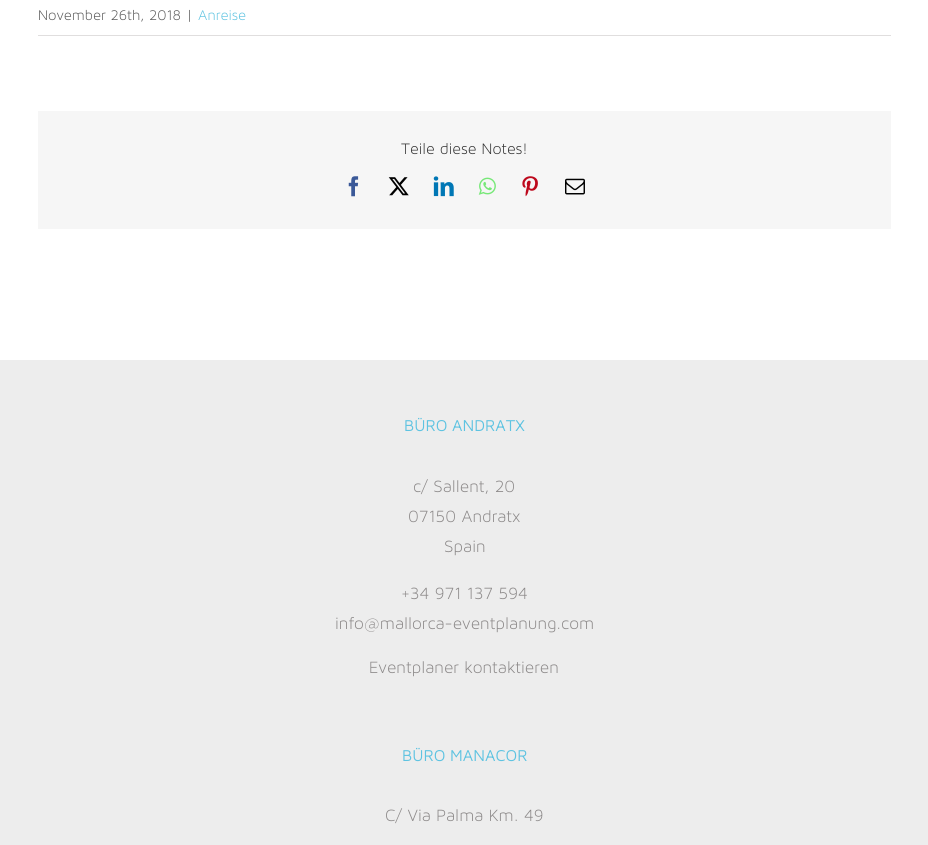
#include <cairo/cairo.h>
#include <math.h>
#include <stddef.h>


static void draw_image(cairo_t *cr, const char *path, double x, double y, double w, double h) {
  cairo_surface_t *image = cairo_image_surface_create_from_png(path);
  cairo_save(cr);
  cairo_set_source_surface(cr, image, x, y);
  cairo_rectangle(cr, x, y, w, h);
  cairo_fill(cr);
  cairo_restore(cr);
  cairo_surface_destroy(image);
}

static void draw(cairo_t *cr) {
  cairo_set_source_rgb(cr, 1, 1, 1);
  cairo_paint(cr);
  cairo_set_source_rgb(cr, 224 / 255.0, 222 / 255.0, 222 / 255.0);
  cairo_rectangle(cr, 38, 35, 853, 1);
  cairo_fill(cr);
  cairo_set_source_rgb(cr, 246 / 255.0, 246 / 255.0, 246 / 255.0);
  cairo_rectangle(cr, 38, 111, 853, 118);
  cairo_fill(cr);
  draw_image(cr, "images/1.png", 348, 176, 11, 21);
  draw_image(cr, "images/2.png", 388, 177, 21, 19);
  draw_image(cr, "images/3.png", 433, 176, 21, 21);
  draw_image(cr, "images/4.png", 478, 177, 18, 18);
  draw_image(cr, "images/5.png", 522, 176, 16, 21);
  draw_image(cr, "images/6.png", 565, 178, 20, 17);
  cairo_set_source_rgb(cr, 237 / 255.0, 237 / 255.0, 237 / 255.0);
  cairo_rectangle(cr, 0, 360, 928, 485);
  cairo_fill(cr);
  cairo_select_font_face(cr, "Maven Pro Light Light", CAIRO_FONT_SLANT_NORMAL, CAIRO_FONT_WEIGHT_NORMAL);
  cairo_set_font_size(cr, 15);
  cairo_set_source_rgb(cr, 88 / 255.0, 88 / 255.0, 88 / 255.0);
  cairo_move_to(cr, 38, 20);
  cairo_show_text(cr, "November 26th, 2018");
  cairo_move_to(cr, 187, 20);
  cairo_show_text(cr, "|");
  cairo_set_source_rgb(cr, 94 / 255.0, 195 / 255.0, 225 / 255.0);
  cairo_move_to(cr, 198, 20);
  cairo_show_text(cr, "Anreise");
  cairo_set_font_size(cr, 16.25);
  cairo_set_source_rgb(cr, 51 / 255.0, 51 / 255.0, 51 / 255.0);
  cairo_move_to(cr, 401, 154);
  cairo_show_text(cr, "Teile diese Notes!");
  cairo_select_font_face(cr, "Maven Pro", CAIRO_FONT_SLANT_NORMAL, CAIRO_FONT_WEIGHT_NORMAL);
  cairo_set_source_rgb(cr, 94 / 255.0, 195 / 255.0, 225 / 255.0);
  cairo_move_to(cr, 404, 431);
  cairo_show_text(cr, "BÜRO ANDRATX");
  cairo_select_font_face(cr, "Maven Pro Light Light", CAIRO_FONT_SLANT_NORMAL, CAIRO_FONT_WEIGHT_NORMAL);
  cairo_set_font_size(cr, 17.5);
  cairo_set_source_rgb(cr, 140 / 255.0, 137 / 255.0, 137 / 255.0);
  cairo_move_to(cr, 413, 492);
  cairo_show_text(cr, "c/ Sallent, 20");
  cairo_move_to(cr, 408, 522);
  cairo_show_text(cr, "07150 Andratx");
  cairo_move_to(cr, 444, 552);
  cairo_show_text(cr, "Spain");
  cairo_move_to(cr, 401, 599);
  cairo_show_text(cr, "+34 971 137 594");
  cairo_move_to(cr, 335, 629);
  cairo_show_text(cr, "info@mallorca-eventplanung.com");
  cairo_move_to(cr, 369, 673);
  cairo_show_text(cr, "Eventplaner kontaktieren");
  cairo_select_font_face(cr, "Maven Pro", CAIRO_FONT_SLANT_NORMAL, CAIRO_FONT_WEIGHT_NORMAL);
  cairo_set_font_size(cr, 16.25);
  cairo_set_source_rgb(cr, 94 / 255.0, 195 / 255.0, 225 / 255.0);
  cairo_move_to(cr, 402, 761);
  cairo_show_text(cr, "BÜRO MANACOR");
  cairo_select_font_face(cr, "Maven Pro Light Light", CAIRO_FONT_SLANT_NORMAL, CAIRO_FONT_WEIGHT_NORMAL);
  cairo_set_font_size(cr, 17.5);
  cairo_set_source_rgb(cr, 140 / 255.0, 137 / 255.0, 137 / 255.0);
  cairo_move_to(cr, 385, 821);
  cairo_show_text(cr, "C/ Via Palma Km. 49");
}

int main(void) {
  cairo_surface_t *surface = cairo_image_surface_create(CAIRO_FORMAT_RGB24, 928, 845);
  cairo_t *cr = cairo_create(surface);
  cairo_font_options_t *options = cairo_font_options_create();
  cairo_font_options_set_hint_metrics(options, CAIRO_HINT_METRICS_OFF);
  cairo_font_options_set_hint_style(options, CAIRO_HINT_STYLE_NONE);
  cairo_set_font_options(cr, options);
  cairo_set_miter_limit(cr, 4);
  draw(cr);
  cairo_surface_write_to_png(surface, "out.png");
  cairo_font_options_destroy(options);
  cairo_destroy(cr);
  cairo_surface_destroy(surface);
  return 0;
}
